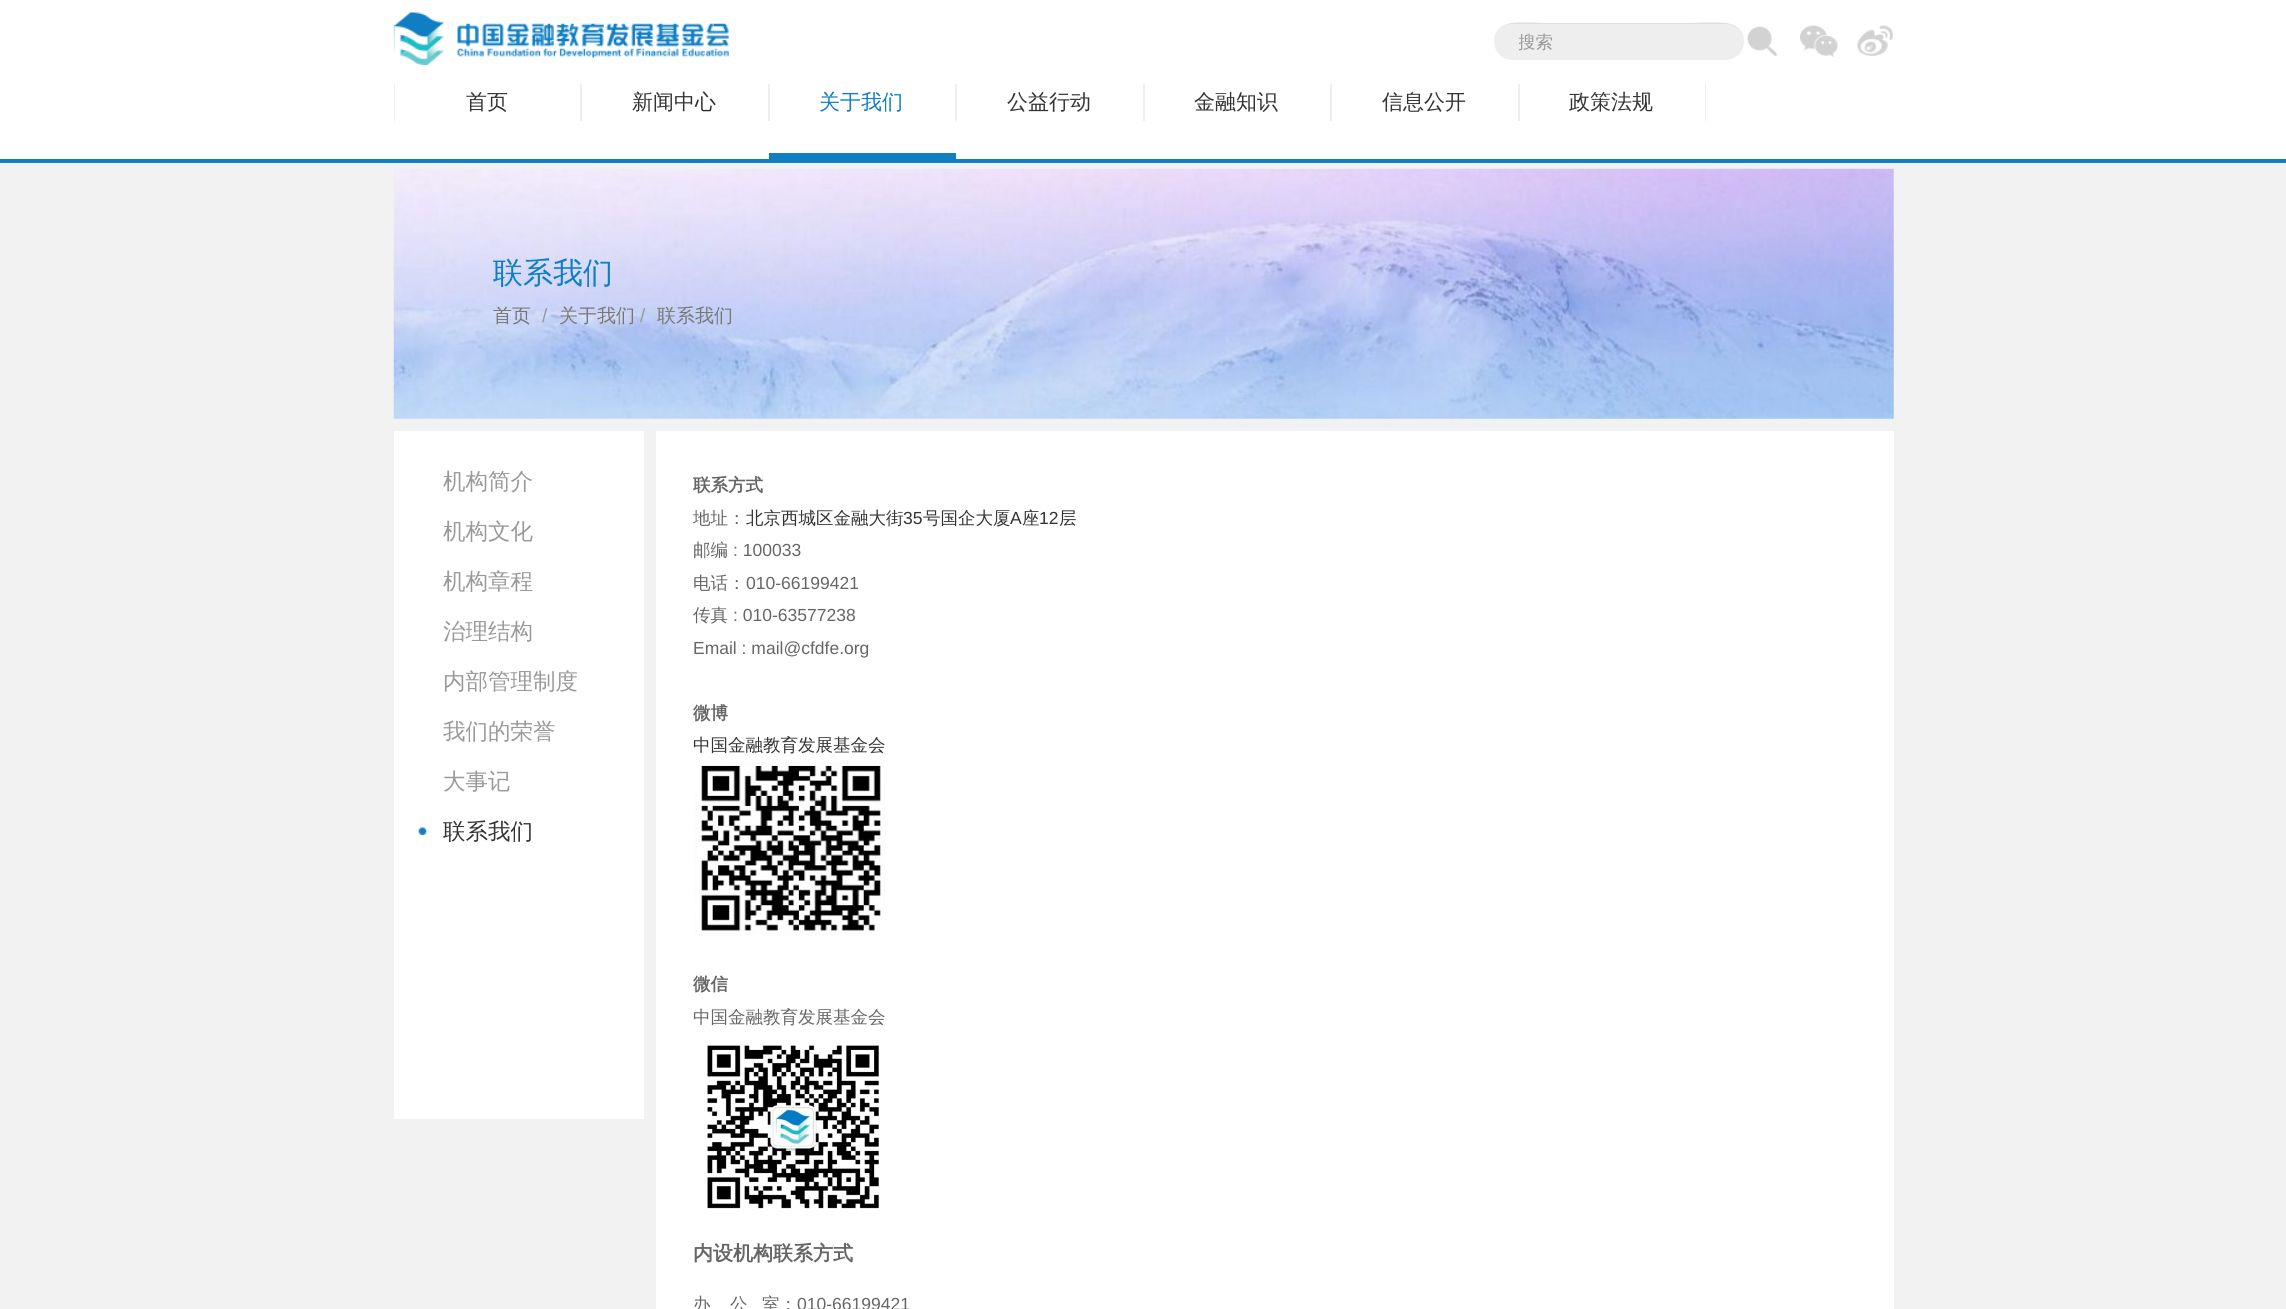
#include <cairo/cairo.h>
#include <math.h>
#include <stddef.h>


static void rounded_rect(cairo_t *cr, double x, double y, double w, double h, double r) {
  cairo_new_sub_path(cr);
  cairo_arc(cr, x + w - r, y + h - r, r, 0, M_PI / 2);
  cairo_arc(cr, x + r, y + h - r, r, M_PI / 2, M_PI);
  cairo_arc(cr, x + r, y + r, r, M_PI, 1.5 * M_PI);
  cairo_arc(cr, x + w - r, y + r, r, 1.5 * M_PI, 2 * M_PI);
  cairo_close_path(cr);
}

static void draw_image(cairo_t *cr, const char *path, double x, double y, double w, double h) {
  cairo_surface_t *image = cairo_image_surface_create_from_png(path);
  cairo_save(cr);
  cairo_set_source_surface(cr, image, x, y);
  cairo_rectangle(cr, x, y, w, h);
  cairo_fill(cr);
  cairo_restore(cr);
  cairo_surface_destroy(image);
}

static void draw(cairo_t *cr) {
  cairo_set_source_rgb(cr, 242 / 255.0, 242 / 255.0, 242 / 255.0);
  cairo_paint(cr);
  cairo_set_source_rgb(cr, 1, 1, 1);
  cairo_rectangle(cr, 0, 0, 2286, 159);
  cairo_fill(cr);
  cairo_set_source_rgb(cr, 15 / 255.0, 126 / 255.0, 195 / 255.0);
  cairo_rectangle(cr, 0, 159, 2286, 4);
  cairo_fill(cr);
  draw_image(cr, "images/1.png", 393, 12, 336, 53);
  cairo_set_source_rgb(cr, 238 / 255.0, 238 / 255.0, 238 / 255.0);
  rounded_rect(cr, 1494, 23, 250, 37, 18.5);
  cairo_fill(cr);
  cairo_set_source_rgba(cr, 0, 0, 0, 0.07);
  cairo_new_path(cr);
  cairo_move_to(cr, 1512, 24);
  cairo_line_to(cr, 1725, 24);
  cairo_curve_to(cr, 1735, 24, 1744, 32, 1744, 42);
  cairo_curve_to(cr, 1744, 15, 1703, 23, 1690, 23);
  cairo_line_to(cr, 1548, 23);
  cairo_curve_to(cr, 1535, 23, 1494, 15, 1494, 42);
  cairo_curve_to(cr, 1494, 32, 1502, 24, 1512, 24);
  cairo_close_path(cr);
  cairo_fill(cr);
  draw_image(cr, "images/2.png", 1747, 26, 31, 30);
  draw_image(cr, "images/3.png", 1800, 25, 38, 32);
  draw_image(cr, "images/4.png", 1857, 25, 36, 31);
  cairo_set_source_rgb(cr, 238 / 255.0, 238 / 255.0, 238 / 255.0);
  cairo_rectangle(cr, 580, 84, 2, 37);
  cairo_fill(cr);
  cairo_rectangle(cr, 394, 84, 1, 37);
  cairo_fill(cr);
  cairo_rectangle(cr, 768, 84, 2, 37);
  cairo_fill(cr);
  cairo_set_source_rgb(cr, 15 / 255.0, 126 / 255.0, 195 / 255.0);
  cairo_rectangle(cr, 769, 153, 187, 6);
  cairo_fill(cr);
  cairo_set_source_rgb(cr, 238 / 255.0, 238 / 255.0, 238 / 255.0);
  cairo_rectangle(cr, 955, 84, 2, 37);
  cairo_fill(cr);
  cairo_rectangle(cr, 1143, 84, 2, 37);
  cairo_fill(cr);
  cairo_rectangle(cr, 1330, 84, 2, 37);
  cairo_fill(cr);
  cairo_rectangle(cr, 1518, 84, 2, 37);
  cairo_fill(cr);
  cairo_rectangle(cr, 1705, 84, 1, 37);
  cairo_fill(cr);
  draw_image(cr, "images/5.png", 393, 168, 1501, 251);
  cairo_set_source_rgb(cr, 1, 1, 1);
  cairo_rectangle(cr, 394, 431, 250, 688);
  cairo_fill(cr);
  draw_image(cr, "images/6.png", 418, 827, 9, 8);
  cairo_rectangle(cr, 656, 431, 1238, 878);
  cairo_fill(cr);
  draw_image(cr, "images/7.png", 694, 761, 191, 174);
  draw_image(cr, "images/8.png", 707, 1044, 172, 165);
  cairo_save(cr);
  cairo_rectangle(cr, 1519, 31, 175, 23);
  cairo_clip(cr);
  cairo_select_font_face(cr, "WenQuanYi Zen Hei Medium", CAIRO_FONT_SLANT_NORMAL, CAIRO_FONT_WEIGHT_NORMAL);
  cairo_set_font_size(cr, 17.5);
  cairo_set_source_rgb(cr, 153 / 255.0, 153 / 255.0, 153 / 255.0);
  cairo_move_to(cr, 1518, 48);
  cairo_show_text(cr, "搜索");
  cairo_restore(cr);
  cairo_select_font_face(cr, "WenQuanYi Zen Hei Medium", CAIRO_FONT_SLANT_NORMAL, CAIRO_FONT_WEIGHT_NORMAL);
  cairo_set_font_size(cr, 21);
  cairo_set_source_rgb(cr, 51 / 255.0, 51 / 255.0, 51 / 255.0);
  cairo_move_to(cr, 466, 109);
  cairo_show_text(cr, "首页");
  cairo_move_to(cr, 632, 109);
  cairo_show_text(cr, "新闻中心");
  cairo_set_source_rgb(cr, 15 / 255.0, 126 / 255.0, 195 / 255.0);
  cairo_move_to(cr, 819, 109);
  cairo_show_text(cr, "关于我们");
  cairo_set_source_rgb(cr, 51 / 255.0, 51 / 255.0, 51 / 255.0);
  cairo_move_to(cr, 1007, 109);
  cairo_show_text(cr, "公益行动");
  cairo_move_to(cr, 1194, 109);
  cairo_show_text(cr, "金融知识");
  cairo_move_to(cr, 1382, 109);
  cairo_show_text(cr, "信息公开");
  cairo_move_to(cr, 1569, 109);
  cairo_show_text(cr, "政策法规");
  cairo_set_font_size(cr, 30);
  cairo_set_source_rgb(cr, 15 / 255.0, 126 / 255.0, 195 / 255.0);
  cairo_move_to(cr, 493, 283);
  cairo_show_text(cr, "联系我们");
  cairo_set_font_size(cr, 19);
  cairo_set_source_rgb(cr, 119 / 255.0, 119 / 255.0, 119 / 255.0);
  cairo_move_to(cr, 493, 322);
  cairo_show_text(cr, "首页");
  cairo_select_font_face(cr, "Liberation Sans", CAIRO_FONT_SLANT_NORMAL, CAIRO_FONT_WEIGHT_NORMAL);
  cairo_set_source_rgb(cr, 153 / 255.0, 153 / 255.0, 153 / 255.0);
  cairo_move_to(cr, 542, 322);
  cairo_show_text(cr, "/");
  cairo_select_font_face(cr, "WenQuanYi Zen Hei Medium", CAIRO_FONT_SLANT_NORMAL, CAIRO_FONT_WEIGHT_NORMAL);
  cairo_set_source_rgb(cr, 119 / 255.0, 119 / 255.0, 119 / 255.0);
  cairo_move_to(cr, 559, 322);
  cairo_show_text(cr, "关于我们");
  cairo_select_font_face(cr, "Liberation Sans", CAIRO_FONT_SLANT_NORMAL, CAIRO_FONT_WEIGHT_NORMAL);
  cairo_set_source_rgb(cr, 153 / 255.0, 153 / 255.0, 153 / 255.0);
  cairo_move_to(cr, 640, 322);
  cairo_show_text(cr, "/");
  cairo_select_font_face(cr, "WenQuanYi Zen Hei Medium", CAIRO_FONT_SLANT_NORMAL, CAIRO_FONT_WEIGHT_NORMAL);
  cairo_set_source_rgb(cr, 119 / 255.0, 119 / 255.0, 119 / 255.0);
  cairo_move_to(cr, 657, 322);
  cairo_show_text(cr, "联系我们");
  cairo_set_font_size(cr, 22.5);
  cairo_set_source_rgb(cr, 153 / 255.0, 153 / 255.0, 153 / 255.0);
  cairo_move_to(cr, 443, 489);
  cairo_show_text(cr, "机构简介");
  cairo_move_to(cr, 443, 539);
  cairo_show_text(cr, "机构文化");
  cairo_move_to(cr, 443, 589);
  cairo_show_text(cr, "机构章程");
  cairo_move_to(cr, 443, 639);
  cairo_show_text(cr, "治理结构");
  cairo_move_to(cr, 443, 689);
  cairo_show_text(cr, "内部管理制度");
  cairo_move_to(cr, 443, 739);
  cairo_show_text(cr, "我们的荣誉");
  cairo_move_to(cr, 443, 789);
  cairo_show_text(cr, "大事记");
  cairo_set_source_rgb(cr, 51 / 255.0, 51 / 255.0, 51 / 255.0);
  cairo_move_to(cr, 443, 839);
  cairo_show_text(cr, "联系我们");
  cairo_select_font_face(cr, "WenQuanYi Zen Hei", CAIRO_FONT_SLANT_NORMAL, CAIRO_FONT_WEIGHT_BOLD);
  cairo_set_font_size(cr, 17.5);
  cairo_set_source_rgb(cr, 102 / 255.0, 102 / 255.0, 102 / 255.0);
  cairo_move_to(cr, 693, 491);
  cairo_show_text(cr, "联系方式");
  cairo_select_font_face(cr, "WenQuanYi Zen Hei Medium", CAIRO_FONT_SLANT_NORMAL, CAIRO_FONT_WEIGHT_NORMAL);
  cairo_move_to(cr, 693, 524);
  cairo_show_text(cr, "地址：");
  cairo_set_source_rgb(cr, 51 / 255.0, 51 / 255.0, 51 / 255.0);
  cairo_move_to(cr, 746, 524);
  cairo_show_text(cr, "北京西城区金融大街");
  cairo_select_font_face(cr, "Liberation Sans", CAIRO_FONT_SLANT_NORMAL, CAIRO_FONT_WEIGHT_NORMAL);
  cairo_move_to(cr, 903, 524);
  cairo_show_text(cr, "35");
  cairo_select_font_face(cr, "WenQuanYi Zen Hei Medium", CAIRO_FONT_SLANT_NORMAL, CAIRO_FONT_WEIGHT_NORMAL);
  cairo_move_to(cr, 923, 524);
  cairo_show_text(cr, "号国企大厦");
  cairo_select_font_face(cr, "Liberation Sans", CAIRO_FONT_SLANT_NORMAL, CAIRO_FONT_WEIGHT_NORMAL);
  cairo_move_to(cr, 1010, 524);
  cairo_show_text(cr, "A");
  cairo_select_font_face(cr, "WenQuanYi Zen Hei Medium", CAIRO_FONT_SLANT_NORMAL, CAIRO_FONT_WEIGHT_NORMAL);
  cairo_move_to(cr, 1022, 524);
  cairo_show_text(cr, "座");
  cairo_select_font_face(cr, "Liberation Sans", CAIRO_FONT_SLANT_NORMAL, CAIRO_FONT_WEIGHT_NORMAL);
  cairo_move_to(cr, 1039, 524);
  cairo_show_text(cr, "12");
  cairo_select_font_face(cr, "WenQuanYi Zen Hei Medium", CAIRO_FONT_SLANT_NORMAL, CAIRO_FONT_WEIGHT_NORMAL);
  cairo_move_to(cr, 1059, 524);
  cairo_show_text(cr, "层");
  cairo_set_source_rgb(cr, 102 / 255.0, 102 / 255.0, 102 / 255.0);
  cairo_move_to(cr, 693, 556);
  cairo_show_text(cr, "邮编");
  cairo_select_font_face(cr, "Liberation Sans", CAIRO_FONT_SLANT_NORMAL, CAIRO_FONT_WEIGHT_NORMAL);
  cairo_move_to(cr, 733, 556);
  cairo_show_text(cr, ": 100033");
  cairo_select_font_face(cr, "WenQuanYi Zen Hei Medium", CAIRO_FONT_SLANT_NORMAL, CAIRO_FONT_WEIGHT_NORMAL);
  cairo_move_to(cr, 693, 589);
  cairo_show_text(cr, "电话：");
  cairo_select_font_face(cr, "Liberation Sans", CAIRO_FONT_SLANT_NORMAL, CAIRO_FONT_WEIGHT_NORMAL);
  cairo_move_to(cr, 746, 589);
  cairo_show_text(cr, "010-66199421");
  cairo_select_font_face(cr, "WenQuanYi Zen Hei Medium", CAIRO_FONT_SLANT_NORMAL, CAIRO_FONT_WEIGHT_NORMAL);
  cairo_move_to(cr, 693, 621);
  cairo_show_text(cr, "传真");
  cairo_select_font_face(cr, "Liberation Sans", CAIRO_FONT_SLANT_NORMAL, CAIRO_FONT_WEIGHT_NORMAL);
  cairo_move_to(cr, 733, 621);
  cairo_show_text(cr, ": 010-63577238");
  cairo_move_to(cr, 693, 654);
  cairo_show_text(cr, "Email : mail@cfdfe.org");
  cairo_select_font_face(cr, "WenQuanYi Zen Hei", CAIRO_FONT_SLANT_NORMAL, CAIRO_FONT_WEIGHT_BOLD);
  cairo_move_to(cr, 693, 719);
  cairo_show_text(cr, "微博");
  cairo_select_font_face(cr, "WenQuanYi Zen Hei Medium", CAIRO_FONT_SLANT_NORMAL, CAIRO_FONT_WEIGHT_NORMAL);
  cairo_set_source_rgb(cr, 51 / 255.0, 51 / 255.0, 51 / 255.0);
  cairo_move_to(cr, 693, 751);
  cairo_show_text(cr, "中国金融教育发展基金会");
  cairo_select_font_face(cr, "WenQuanYi Zen Hei", CAIRO_FONT_SLANT_NORMAL, CAIRO_FONT_WEIGHT_BOLD);
  cairo_set_source_rgb(cr, 102 / 255.0, 102 / 255.0, 102 / 255.0);
  cairo_move_to(cr, 693, 990);
  cairo_show_text(cr, "微信");
  cairo_select_font_face(cr, "WenQuanYi Zen Hei Medium", CAIRO_FONT_SLANT_NORMAL, CAIRO_FONT_WEIGHT_NORMAL);
  cairo_move_to(cr, 693, 1023);
  cairo_show_text(cr, "中国金融教育发展基金会");
  cairo_select_font_face(cr, "WenQuanYi Zen Hei", CAIRO_FONT_SLANT_NORMAL, CAIRO_FONT_WEIGHT_BOLD);
  cairo_set_font_size(cr, 20);
  cairo_move_to(cr, 693, 1260);
  cairo_show_text(cr, "内设机构联系方式");
  cairo_select_font_face(cr, "WenQuanYi Zen Hei Medium", CAIRO_FONT_SLANT_NORMAL, CAIRO_FONT_WEIGHT_NORMAL);
  cairo_set_font_size(cr, 17.5);
  cairo_move_to(cr, 693, 1310);
  cairo_show_text(cr, "办");
  cairo_move_to(cr, 730, 1310);
  cairo_show_text(cr, "公");
  cairo_move_to(cr, 762, 1310);
  cairo_show_text(cr, "室：");
  cairo_select_font_face(cr, "Liberation Sans", CAIRO_FONT_SLANT_NORMAL, CAIRO_FONT_WEIGHT_NORMAL);
  cairo_move_to(cr, 797, 1310);
  cairo_show_text(cr, "010-66199421");
}

int main(void) {
  cairo_surface_t *surface = cairo_image_surface_create(CAIRO_FORMAT_RGB24, 2286, 1309);
  cairo_t *cr = cairo_create(surface);
  cairo_font_options_t *options = cairo_font_options_create();
  cairo_font_options_set_hint_metrics(options, CAIRO_HINT_METRICS_OFF);
  cairo_font_options_set_hint_style(options, CAIRO_HINT_STYLE_NONE);
  cairo_set_font_options(cr, options);
  cairo_set_miter_limit(cr, 4);
  draw(cr);
  cairo_surface_write_to_png(surface, "out.png");
  cairo_font_options_destroy(options);
  cairo_destroy(cr);
  cairo_surface_destroy(surface);
  return 0;
}
